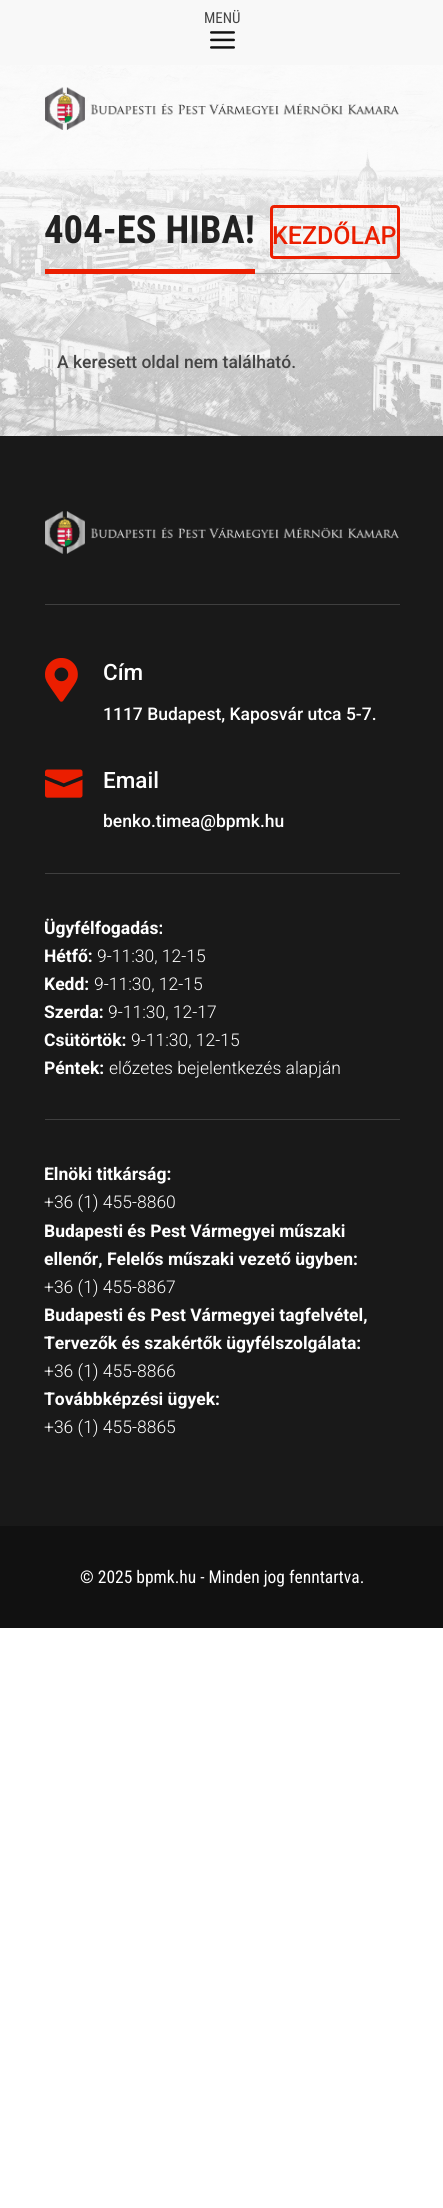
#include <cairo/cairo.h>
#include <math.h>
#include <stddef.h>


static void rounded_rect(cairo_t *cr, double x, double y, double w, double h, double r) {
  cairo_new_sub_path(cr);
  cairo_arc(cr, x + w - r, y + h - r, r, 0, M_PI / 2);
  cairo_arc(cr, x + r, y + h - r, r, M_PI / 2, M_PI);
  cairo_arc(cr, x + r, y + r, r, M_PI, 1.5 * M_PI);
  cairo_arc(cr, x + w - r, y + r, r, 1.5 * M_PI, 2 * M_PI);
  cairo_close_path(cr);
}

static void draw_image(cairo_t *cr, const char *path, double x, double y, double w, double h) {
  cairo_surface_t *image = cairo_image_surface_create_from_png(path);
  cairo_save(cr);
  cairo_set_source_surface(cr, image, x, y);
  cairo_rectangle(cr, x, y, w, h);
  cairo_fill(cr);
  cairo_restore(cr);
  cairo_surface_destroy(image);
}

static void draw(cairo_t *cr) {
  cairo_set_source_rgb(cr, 1, 1, 1);
  cairo_paint(cr);
  cairo_set_source_rgb(cr, 248 / 255.0, 248 / 255.0, 248 / 255.0);
  cairo_rectangle(cr, 0, 0, 443, 65);
  cairo_fill(cr);
  draw_image(cr, "images/1.png", 210, 31, 25, 18);
  draw_image(cr, "images/2.png", 0, 65, 443, 371);
  draw_image(cr, "images/3.png", 45, 87, 354, 43);
  cairo_set_source_rgb(cr, 175 / 255.0, 175 / 255.0, 175 / 255.0);
  cairo_rectangle(cr, 255, 273, 145, 1);
  cairo_fill(cr);
  cairo_set_source_rgb(cr, 235 / 255.0, 30 / 255.0, 0);
  cairo_rectangle(cr, 45, 269, 210, 5);
  cairo_fill(cr);
  rounded_rect(cr, 271.5, 206.5, 127, 51, 2.5);
  cairo_set_line_width(cr, 3);
  cairo_stroke(cr);
  cairo_set_source_rgb(cr, 25 / 255.0, 25 / 255.0, 25 / 255.0);
  cairo_rectangle(cr, 0, 436, 443, 1090);
  cairo_fill(cr);
  draw_image(cr, "images/4.png", 45, 511, 354, 43);
  cairo_set_source_rgb(cr, 63 / 255.0, 63 / 255.0, 63 / 255.0);
  cairo_rectangle(cr, 45, 604, 355, 1);
  cairo_fill(cr);
  draw_image(cr, "images/5.png", 45, 658, 33, 44);
  draw_image(cr, "images/6.png", 45, 769, 38, 29);
  cairo_rectangle(cr, 45, 873, 355, 1);
  cairo_fill(cr);
  cairo_rectangle(cr, 45, 1119, 355, 1);
  cairo_fill(cr);
  cairo_set_source_rgb(cr, 17 / 255.0, 17 / 255.0, 17 / 255.0);
  cairo_rectangle(cr, 0, 1526, 443, 102);
  cairo_fill(cr);
  cairo_select_font_face(cr, "Roboto Condensed", CAIRO_FONT_SLANT_NORMAL, CAIRO_FONT_WEIGHT_NORMAL);
  cairo_set_font_size(cr, 15);
  cairo_set_source_rgb(cr, 69 / 255.0, 69 / 255.0, 69 / 255.0);
  cairo_move_to(cr, 204, 23);
  cairo_show_text(cr, "MENÜ");
  cairo_select_font_face(cr, "Roboto Condensed", CAIRO_FONT_SLANT_NORMAL, CAIRO_FONT_WEIGHT_BOLD);
  cairo_set_font_size(cr, 38.75);
  cairo_set_source_rgb(cr, 34 / 255.0, 34 / 255.0, 34 / 255.0);
  cairo_move_to(cr, 44, 243);
  cairo_show_text(cr, "404-ES HIBA!");
  cairo_select_font_face(cr, "Roboto Medium", CAIRO_FONT_SLANT_NORMAL, CAIRO_FONT_WEIGHT_NORMAL);
  cairo_set_font_size(cr, 25);
  cairo_set_source_rgb(cr, 235 / 255.0, 30 / 255.0, 0);
  cairo_move_to(cr, 272, 244);
  cairo_show_text(cr, "KEZDŐLAP");
  cairo_set_font_size(cr, 17.5);
  cairo_set_source_rgb(cr, 69 / 255.0, 69 / 255.0, 69 / 255.0);
  cairo_move_to(cr, 57, 368);
  cairo_show_text(cr, "A keresett oldal nem található.");
  cairo_set_font_size(cr, 22.5);
  cairo_set_source_rgb(cr, 1, 1, 1);
  cairo_move_to(cr, 103, 680);
  cairo_show_text(cr, "Cím");
  cairo_set_font_size(cr, 17.5);
  cairo_move_to(cr, 103, 720);
  cairo_show_text(cr, "1117 Budapest, Kaposvár utca 5-7.");
  cairo_set_font_size(cr, 22.5);
  cairo_move_to(cr, 103, 788);
  cairo_show_text(cr, "Email");
  cairo_set_font_size(cr, 17.5);
  cairo_move_to(cr, 103, 827);
  cairo_show_text(cr, "benko.timea@bpmk.hu");
  cairo_select_font_face(cr, "Roboto", CAIRO_FONT_SLANT_NORMAL, CAIRO_FONT_WEIGHT_BOLD);
  cairo_move_to(cr, 44, 934);
  cairo_show_text(cr, "Ügyfélfogadás:");
  cairo_move_to(cr, 44, 962);
  cairo_show_text(cr, "Hétfő:");
  cairo_select_font_face(cr, "Roboto Light", CAIRO_FONT_SLANT_NORMAL, CAIRO_FONT_WEIGHT_NORMAL);
  cairo_move_to(cr, 97, 962);
  cairo_show_text(cr, "9-11:30, 12-15");
  cairo_select_font_face(cr, "Roboto", CAIRO_FONT_SLANT_NORMAL, CAIRO_FONT_WEIGHT_BOLD);
  cairo_move_to(cr, 44, 990);
  cairo_show_text(cr, "Kedd:");
  cairo_select_font_face(cr, "Roboto Light", CAIRO_FONT_SLANT_NORMAL, CAIRO_FONT_WEIGHT_NORMAL);
  cairo_move_to(cr, 94, 990);
  cairo_show_text(cr, "9-11:30, 12-15");
  cairo_select_font_face(cr, "Roboto", CAIRO_FONT_SLANT_NORMAL, CAIRO_FONT_WEIGHT_BOLD);
  cairo_move_to(cr, 44, 1018);
  cairo_show_text(cr, "Szerda:");
  cairo_select_font_face(cr, "Roboto Light", CAIRO_FONT_SLANT_NORMAL, CAIRO_FONT_WEIGHT_NORMAL);
  cairo_move_to(cr, 108, 1018);
  cairo_show_text(cr, "9-11:30, 12-17");
  cairo_select_font_face(cr, "Roboto", CAIRO_FONT_SLANT_NORMAL, CAIRO_FONT_WEIGHT_BOLD);
  cairo_move_to(cr, 44, 1046);
  cairo_show_text(cr, "Csütörtök:");
  cairo_select_font_face(cr, "Roboto Light", CAIRO_FONT_SLANT_NORMAL, CAIRO_FONT_WEIGHT_NORMAL);
  cairo_move_to(cr, 131, 1046);
  cairo_show_text(cr, "9-11:30, 12-15");
  cairo_select_font_face(cr, "Roboto", CAIRO_FONT_SLANT_NORMAL, CAIRO_FONT_WEIGHT_BOLD);
  cairo_move_to(cr, 44, 1074);
  cairo_show_text(cr, "Péntek:");
  cairo_select_font_face(cr, "Roboto Light", CAIRO_FONT_SLANT_NORMAL, CAIRO_FONT_WEIGHT_NORMAL);
  cairo_move_to(cr, 109, 1074);
  cairo_show_text(cr, "előzetes bejelentkezés alapján");
  cairo_select_font_face(cr, "Roboto", CAIRO_FONT_SLANT_NORMAL, CAIRO_FONT_WEIGHT_BOLD);
  cairo_move_to(cr, 44, 1180);
  cairo_show_text(cr, "Elnöki titkárság:");
  cairo_select_font_face(cr, "Roboto Light", CAIRO_FONT_SLANT_NORMAL, CAIRO_FONT_WEIGHT_NORMAL);
  cairo_move_to(cr, 44, 1208);
  cairo_show_text(cr, "+36 (1) 455-8860");
  cairo_select_font_face(cr, "Roboto", CAIRO_FONT_SLANT_NORMAL, CAIRO_FONT_WEIGHT_BOLD);
  cairo_move_to(cr, 44, 1237);
  cairo_show_text(cr, "Budapesti és Pest Vármegyei műszaki");
  cairo_move_to(cr, 44, 1265);
  cairo_show_text(cr, "ellenőr, Felelős műszaki vezető ügyben:");
  cairo_select_font_face(cr, "Roboto Light", CAIRO_FONT_SLANT_NORMAL, CAIRO_FONT_WEIGHT_NORMAL);
  cairo_move_to(cr, 44, 1293);
  cairo_show_text(cr, "+36 (1) 455-8867");
  cairo_select_font_face(cr, "Roboto", CAIRO_FONT_SLANT_NORMAL, CAIRO_FONT_WEIGHT_BOLD);
  cairo_move_to(cr, 44, 1321);
  cairo_show_text(cr, "Budapesti és Pest Vármegyei tagfelvétel,");
  cairo_move_to(cr, 44, 1349);
  cairo_show_text(cr, "Tervezők és szakértők ügyfélszolgálata:");
  cairo_select_font_face(cr, "Roboto Light", CAIRO_FONT_SLANT_NORMAL, CAIRO_FONT_WEIGHT_NORMAL);
  cairo_move_to(cr, 44, 1377);
  cairo_show_text(cr, "+36 (1) 455-8866");
  cairo_select_font_face(cr, "Roboto", CAIRO_FONT_SLANT_NORMAL, CAIRO_FONT_WEIGHT_BOLD);
  cairo_move_to(cr, 44, 1405);
  cairo_show_text(cr, "Továbbképzési ügyek:");
  cairo_select_font_face(cr, "Roboto Light", CAIRO_FONT_SLANT_NORMAL, CAIRO_FONT_WEIGHT_NORMAL);
  cairo_move_to(cr, 44, 1433);
  cairo_show_text(cr, "+36 (1) 455-8865");
  cairo_select_font_face(cr, "Roboto Condensed", CAIRO_FONT_SLANT_NORMAL, CAIRO_FONT_WEIGHT_NORMAL);
  cairo_move_to(cr, 80, 1583);
  cairo_show_text(cr, "© 2025 bpmk.hu - Minden jog fenntartva.");
}

int main(void) {
  cairo_surface_t *surface = cairo_image_surface_create(CAIRO_FORMAT_RGB24, 443, 2208);
  cairo_t *cr = cairo_create(surface);
  cairo_font_options_t *options = cairo_font_options_create();
  cairo_font_options_set_hint_metrics(options, CAIRO_HINT_METRICS_OFF);
  cairo_font_options_set_hint_style(options, CAIRO_HINT_STYLE_NONE);
  cairo_set_font_options(cr, options);
  cairo_set_miter_limit(cr, 4);
  draw(cr);
  cairo_surface_write_to_png(surface, "out.png");
  cairo_font_options_destroy(options);
  cairo_destroy(cr);
  cairo_surface_destroy(surface);
  return 0;
}
